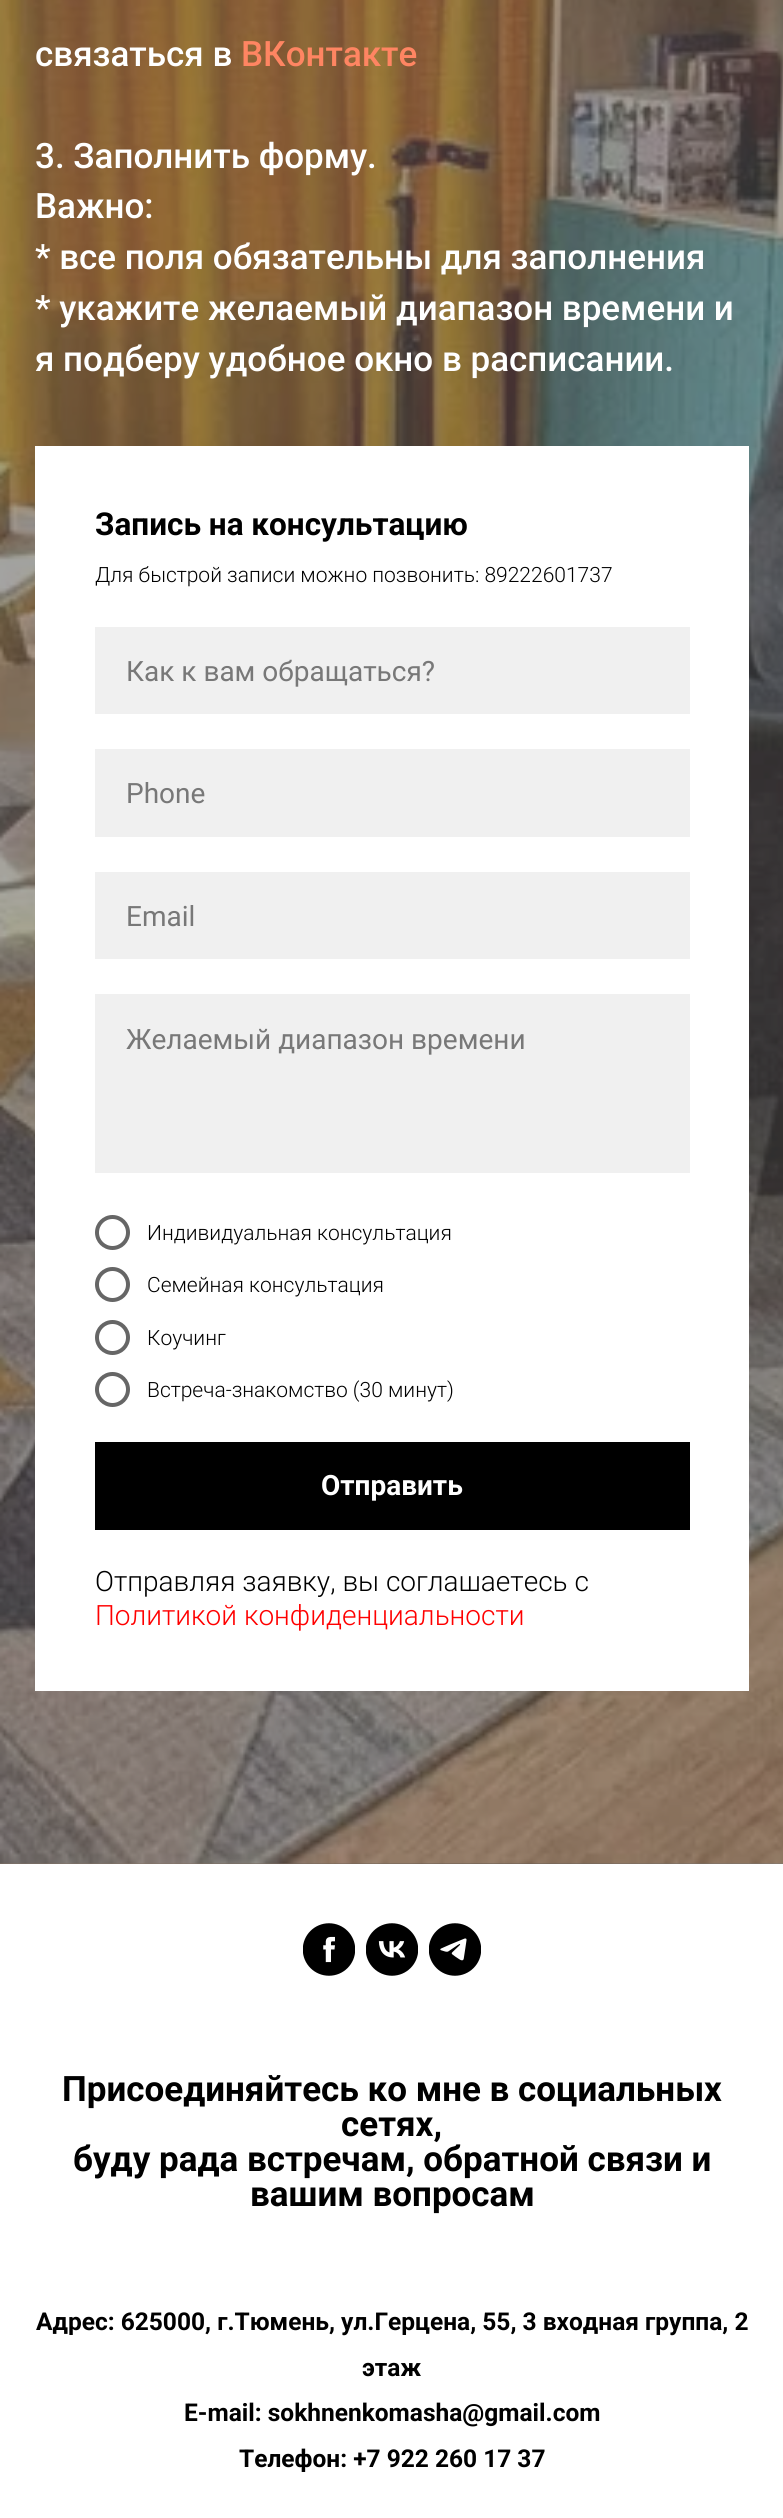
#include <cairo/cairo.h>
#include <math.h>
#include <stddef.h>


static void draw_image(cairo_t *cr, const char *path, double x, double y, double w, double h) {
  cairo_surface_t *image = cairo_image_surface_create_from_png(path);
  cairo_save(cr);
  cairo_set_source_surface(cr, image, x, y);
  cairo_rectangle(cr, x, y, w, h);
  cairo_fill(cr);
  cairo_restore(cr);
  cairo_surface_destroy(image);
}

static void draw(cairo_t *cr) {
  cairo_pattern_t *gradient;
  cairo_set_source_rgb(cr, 1, 1, 1);
  cairo_paint(cr);
  draw_image(cr, "images/1.png", 0, 1863, 783, 1);
  draw_image(cr, "images/2.png", 0, 0, 783, 1864);
  gradient = cairo_pattern_create_linear(392, -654, 392, 1864);
  cairo_pattern_add_color_stop_rgba(gradient, 0, 89 / 255.0, 89 / 255.0, 89 / 255.0, 0.6);
  cairo_pattern_add_color_stop_rgba(gradient, 1, 89 / 255.0, 89 / 255.0, 89 / 255.0, 0.5);
  cairo_set_source(cr, gradient);
  cairo_pattern_destroy(gradient);
  cairo_rectangle(cr, 0, 0, 783, 1864);
  cairo_fill(cr);
  cairo_set_source_rgb(cr, 1, 1, 1);
  cairo_rectangle(cr, 35, 446, 714, 1245);
  cairo_fill(cr);
  cairo_set_source_rgb(cr, 240 / 255.0, 240 / 255.0, 240 / 255.0);
  cairo_rectangle(cr, 95, 627, 595, 87);
  cairo_fill(cr);
  cairo_rectangle(cr, 95, 749, 595, 88);
  cairo_fill(cr);
  cairo_rectangle(cr, 95, 872, 595, 87);
  cairo_fill(cr);
  cairo_rectangle(cr, 95, 994, 595, 179);
  cairo_fill(cr);
  cairo_arc(cr, 112.5, 1232.5, 15.5, 0, 2 * M_PI);
  cairo_set_source_rgb(cr, 102 / 255.0, 102 / 255.0, 102 / 255.0);
  cairo_set_line_width(cr, 4);
  cairo_stroke(cr);
  cairo_arc(cr, 112.5, 1284.5, 15.5, 0, 2 * M_PI);
  cairo_stroke(cr);
  cairo_arc(cr, 112.5, 1337.5, 15.5, 0, 2 * M_PI);
  cairo_stroke(cr);
  cairo_arc(cr, 112.5, 1389.5, 15.5, 0, 2 * M_PI);
  cairo_stroke(cr);
  cairo_set_source_rgb(cr, 0, 0, 0);
  cairo_rectangle(cr, 95, 1442, 595, 88);
  cairo_fill(cr);
  draw_image(cr, "images/3.png", 303, 1923, 52, 53);
  draw_image(cr, "images/4.png", 366, 1923, 52, 53);
  draw_image(cr, "images/5.png", 429, 1923, 52, 53);
  cairo_select_font_face(cr, "Roboto Medium", CAIRO_FONT_SLANT_NORMAL, CAIRO_FONT_WEIGHT_NORMAL);
  cairo_set_font_size(cr, 35);
  cairo_set_source_rgb(cr, 1, 1, 1);
  cairo_move_to(cr, 35, 66);
  cairo_show_text(cr, "связаться в");
  cairo_set_source_rgb(cr, 1, 133 / 255.0, 98 / 255.0);
  cairo_move_to(cr, 241, 66);
  cairo_show_text(cr, "ВКонтакте");
  cairo_set_source_rgb(cr, 1, 1, 1);
  cairo_move_to(cr, 35, 168);
  cairo_show_text(cr, "3. Заполнить форму.");
  cairo_move_to(cr, 35, 218);
  cairo_show_text(cr, "Важно:");
  cairo_move_to(cr, 35, 269);
  cairo_show_text(cr, "* все поля обязательны для заполнения");
  cairo_move_to(cr, 35, 320);
  cairo_show_text(cr, "* укажите желаемый диапазон времени и");
  cairo_move_to(cr, 35, 371);
  cairo_show_text(cr, "я подберу удобное окно в расписании.");
  cairo_select_font_face(cr, "Roboto", CAIRO_FONT_SLANT_NORMAL, CAIRO_FONT_WEIGHT_BOLD);
  cairo_set_font_size(cr, 31.5);
  cairo_set_source_rgb(cr, 0, 0, 0);
  cairo_move_to(cr, 95, 535);
  cairo_show_text(cr, "Запись на консультацию");
  cairo_select_font_face(cr, "Roboto Light", CAIRO_FONT_SLANT_NORMAL, CAIRO_FONT_WEIGHT_NORMAL);
  cairo_set_font_size(cr, 21);
  cairo_move_to(cr, 95, 582);
  cairo_show_text(cr, "Для быстрой записи можно позвонить: 89222601737");
  cairo_select_font_face(cr, "Roboto", CAIRO_FONT_SLANT_NORMAL, CAIRO_FONT_WEIGHT_NORMAL);
  cairo_set_font_size(cr, 28);
  cairo_set_source_rgb(cr, 120 / 255.0, 120 / 255.0, 120 / 255.0);
  cairo_move_to(cr, 126, 681);
  cairo_show_text(cr, "Как к вам обращаться?");
  cairo_move_to(cr, 126, 803);
  cairo_show_text(cr, "Phone");
  cairo_move_to(cr, 126, 926);
  cairo_show_text(cr, "Email");
  cairo_move_to(cr, 126, 1049);
  cairo_show_text(cr, "Желаемый диапазон времени");
  cairo_select_font_face(cr, "Roboto Light", CAIRO_FONT_SLANT_NORMAL, CAIRO_FONT_WEIGHT_NORMAL);
  cairo_set_font_size(cr, 21);
  cairo_set_source_rgb(cr, 0, 0, 0);
  cairo_move_to(cr, 147, 1240);
  cairo_show_text(cr, "Индивидуальная консультация");
  cairo_move_to(cr, 147, 1292);
  cairo_show_text(cr, "Семейная консультация");
  cairo_move_to(cr, 147, 1345);
  cairo_show_text(cr, "Коучинг");
  cairo_move_to(cr, 147, 1397);
  cairo_show_text(cr, "Встреча-знакомство (30 минут)");
  cairo_select_font_face(cr, "Roboto", CAIRO_FONT_SLANT_NORMAL, CAIRO_FONT_WEIGHT_BOLD);
  cairo_set_font_size(cr, 28);
  cairo_set_source_rgb(cr, 1, 1, 1);
  cairo_move_to(cr, 321, 1495);
  cairo_show_text(cr, "Отправить");
  cairo_select_font_face(cr, "Roboto Light", CAIRO_FONT_SLANT_NORMAL, CAIRO_FONT_WEIGHT_NORMAL);
  cairo_set_source_rgb(cr, 0, 0, 0);
  cairo_move_to(cr, 95, 1591);
  cairo_show_text(cr, "Отправляя заявку, вы соглашаетесь с");
  cairo_set_source_rgb(cr, 1, 0, 0);
  cairo_move_to(cr, 95, 1625);
  cairo_show_text(cr, "Политикой конфиденциальности");
  cairo_select_font_face(cr, "Roboto", CAIRO_FONT_SLANT_NORMAL, CAIRO_FONT_WEIGHT_BOLD);
  cairo_set_font_size(cr, 35);
  cairo_set_source_rgb(cr, 0, 0, 0);
  cairo_move_to(cr, 62, 2101);
  cairo_show_text(cr, "Присоединяйтесь ко мне в социальных");
  cairo_move_to(cr, 341, 2136);
  cairo_show_text(cr, "сетях,");
  cairo_move_to(cr, 73, 2171);
  cairo_show_text(cr, "буду рада встречам, обратной связи и");
  cairo_move_to(cr, 250, 2206);
  cairo_show_text(cr, "вашим вопросам");
  cairo_set_font_size(cr, 24.5);
  cairo_move_to(cr, 36, 2330);
  cairo_show_text(cr, "Адрес: 625000, г.Тюмень, ул.Герцена, 55, 3 входная группа, 2");
  cairo_move_to(cr, 362, 2376);
  cairo_show_text(cr, "этаж");
  cairo_move_to(cr, 184, 2421);
  cairo_show_text(cr, "E-mail: sokhnenkomasha@gmail.com");
  cairo_move_to(cr, 239, 2467);
  cairo_show_text(cr, "Телефон: +7 922 260 17 37");
}

int main(void) {
  cairo_surface_t *surface = cairo_image_surface_create(CAIRO_FORMAT_RGB24, 783, 2518);
  cairo_t *cr = cairo_create(surface);
  cairo_font_options_t *options = cairo_font_options_create();
  cairo_font_options_set_hint_metrics(options, CAIRO_HINT_METRICS_OFF);
  cairo_font_options_set_hint_style(options, CAIRO_HINT_STYLE_NONE);
  cairo_set_font_options(cr, options);
  cairo_set_miter_limit(cr, 4);
  draw(cr);
  cairo_surface_write_to_png(surface, "out.png");
  cairo_font_options_destroy(options);
  cairo_destroy(cr);
  cairo_surface_destroy(surface);
  return 0;
}
